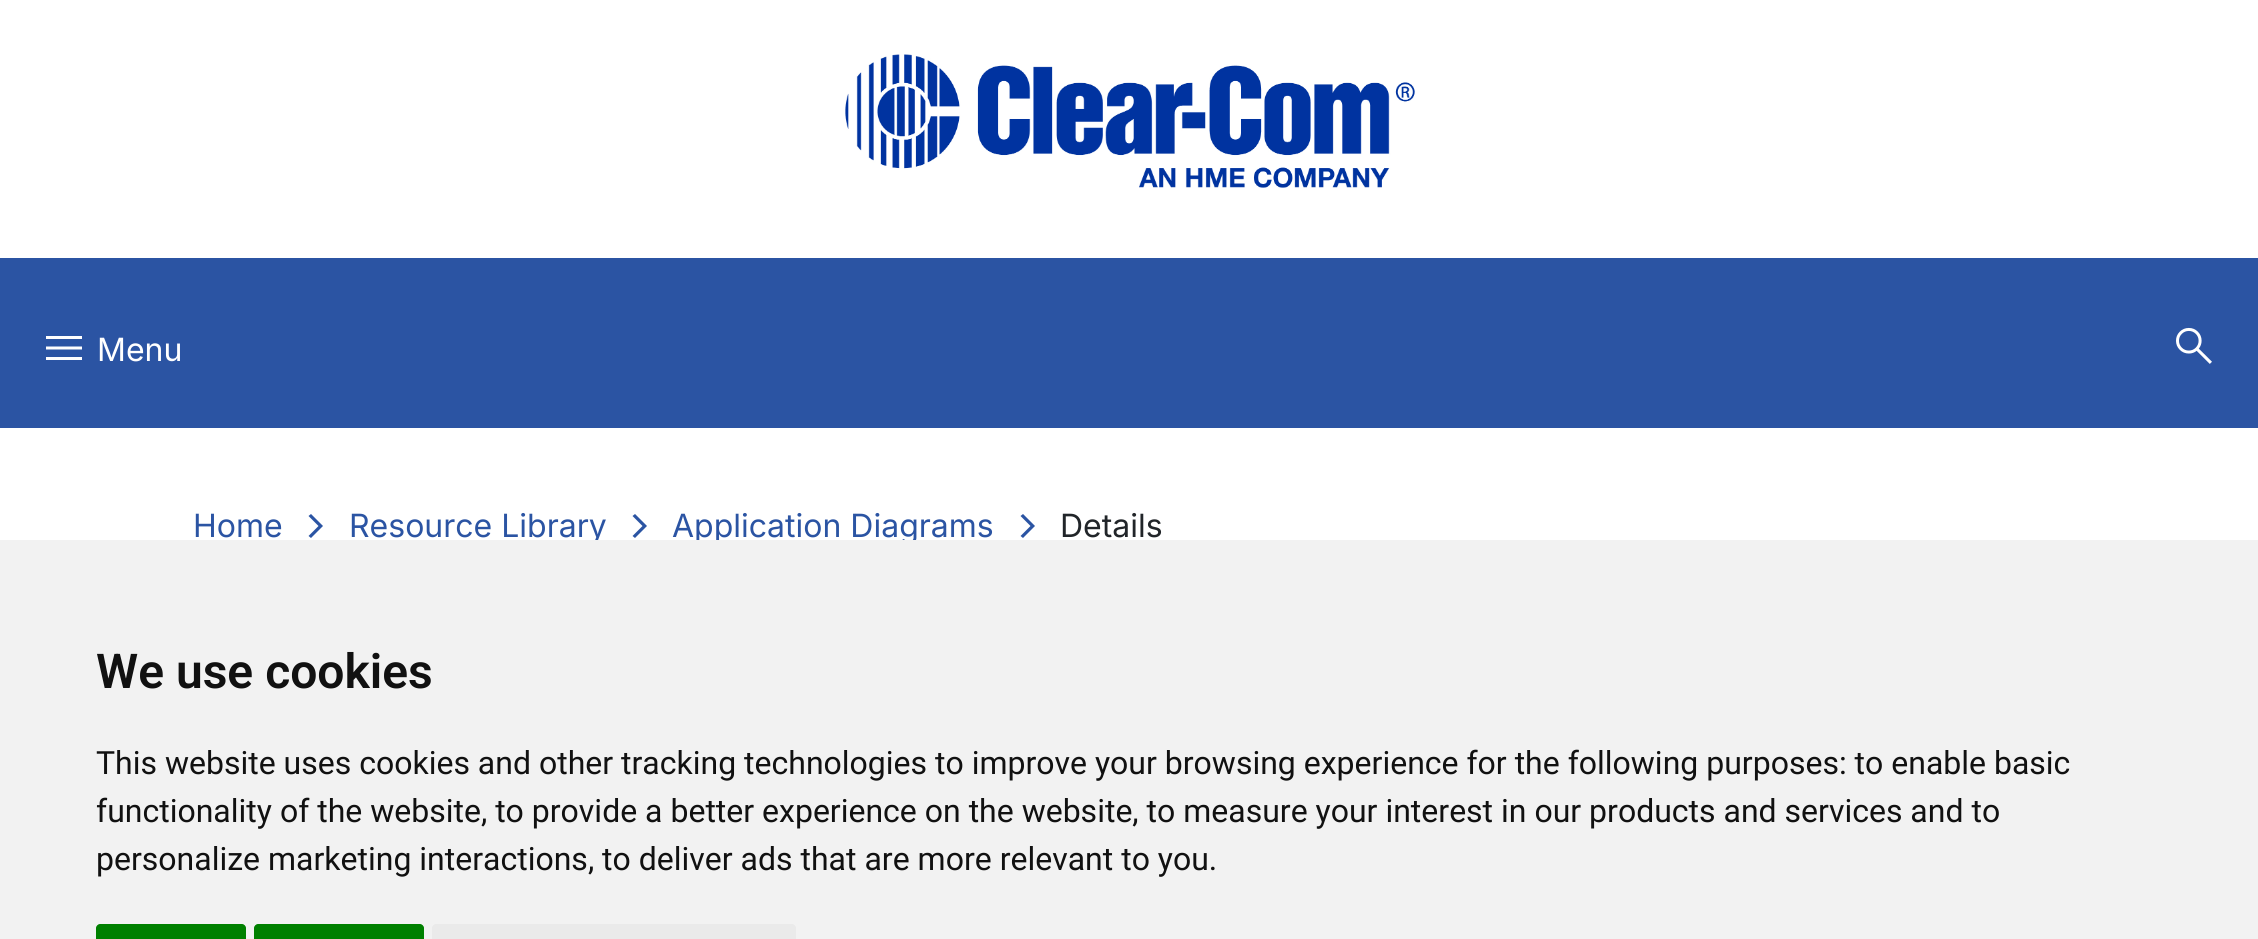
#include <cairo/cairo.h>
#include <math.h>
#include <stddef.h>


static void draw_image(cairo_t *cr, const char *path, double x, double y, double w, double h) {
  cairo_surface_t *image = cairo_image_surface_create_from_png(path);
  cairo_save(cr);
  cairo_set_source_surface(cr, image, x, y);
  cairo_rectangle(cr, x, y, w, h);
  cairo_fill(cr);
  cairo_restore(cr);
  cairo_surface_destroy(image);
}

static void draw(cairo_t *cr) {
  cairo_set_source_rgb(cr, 1, 1, 1);
  cairo_paint(cr);
  draw_image(cr, "images/1.png", 845, 54, 570, 134);
  cairo_set_source_rgb(cr, 43 / 255.0, 84 / 255.0, 163 / 255.0);
  cairo_rectangle(cr, 0, 258, 2258, 170);
  cairo_fill(cr);
  cairo_set_source_rgb(cr, 1, 1, 1);
  cairo_new_path(cr);
  cairo_move_to(cr, 46, 360);
  cairo_line_to(cr, 46, 357);
  cairo_line_to(cr, 82, 357);
  cairo_line_to(cr, 82, 360);
  cairo_close_path(cr);
  cairo_move_to(cr, 46, 349.5);
  cairo_line_to(cr, 46, 346.5);
  cairo_line_to(cr, 82, 346.5);
  cairo_line_to(cr, 82, 349.5);
  cairo_close_path(cr);
  cairo_move_to(cr, 46, 339);
  cairo_line_to(cr, 46, 336);
  cairo_line_to(cr, 82, 336);
  cairo_line_to(cr, 82, 339);
  cairo_close_path(cr);
  cairo_fill(cr);
  draw_image(cr, "images/2.png", 2176, 327, 36, 37);
  cairo_set_source_rgb(cr, 43 / 255.0, 84 / 255.0, 163 / 255.0);
  cairo_new_path(cr);
  cairo_move_to(cr, 318.5, 526);
  cairo_line_to(cr, 308.5, 516);
  cairo_line_to(cr, 311, 514);
  cairo_line_to(cr, 323, 526);
  cairo_line_to(cr, 311, 538);
  cairo_line_to(cr, 308.5, 536);
  cairo_close_path(cr);
  cairo_fill(cr);
  cairo_new_path(cr);
  cairo_move_to(cr, 642.5, 526);
  cairo_line_to(cr, 632.5, 516);
  cairo_line_to(cr, 635, 514);
  cairo_line_to(cr, 647, 526);
  cairo_line_to(cr, 635, 538);
  cairo_line_to(cr, 632.5, 536);
  cairo_close_path(cr);
  cairo_fill(cr);
  cairo_new_path(cr);
  cairo_move_to(cr, 1030.5, 526);
  cairo_line_to(cr, 1020.5, 516);
  cairo_line_to(cr, 1023, 514);
  cairo_line_to(cr, 1035, 526);
  cairo_line_to(cr, 1023, 538);
  cairo_line_to(cr, 1020.5, 536);
  cairo_close_path(cr);
  cairo_fill(cr);
  cairo_select_font_face(cr, "Inter", CAIRO_FONT_SLANT_NORMAL, CAIRO_FONT_WEIGHT_NORMAL);
  cairo_set_font_size(cr, 32);
  cairo_set_source_rgb(cr, 1, 1, 1);
  cairo_move_to(cr, 97, 361);
  cairo_show_text(cr, "Menu");
  cairo_set_source_rgb(cr, 43 / 255.0, 84 / 255.0, 163 / 255.0);
  cairo_move_to(cr, 193, 537);
  cairo_show_text(cr, "Home");
  cairo_move_to(cr, 349, 537);
  cairo_show_text(cr, "Resource Library");
  cairo_move_to(cr, 672, 537);
  cairo_show_text(cr, "Application Diagrams");
  cairo_set_source_rgb(cr, 33 / 255.0, 37 / 255.0, 41 / 255.0);
  cairo_move_to(cr, 1060, 537);
  cairo_show_text(cr, "Details");
  cairo_set_source_rgb(cr, 242 / 255.0, 242 / 255.0, 242 / 255.0);
  cairo_rectangle(cr, 0, 540, 2258, 399);
  cairo_fill(cr);
  cairo_select_font_face(cr, "Roboto SemiBold", CAIRO_FONT_SLANT_NORMAL, CAIRO_FONT_WEIGHT_NORMAL);
  cairo_set_font_size(cr, 48);
  cairo_set_source_rgb(cr, 17 / 255.0, 17 / 255.0, 17 / 255.0);
  cairo_move_to(cr, 96, 688);
  cairo_show_text(cr, "We use cookies");
  cairo_select_font_face(cr, "Roboto", CAIRO_FONT_SLANT_NORMAL, CAIRO_FONT_WEIGHT_NORMAL);
  cairo_set_font_size(cr, 32);
  cairo_move_to(cr, 96, 774);
  cairo_show_text(cr, "This website uses cookies and other tracking technologies to improve your browsing experience for the following purposes: to enable basic");
  cairo_move_to(cr, 96, 822);
  cairo_show_text(cr, "functionality of the website, to provide a better experience on the website, to measure your interest in our products and services and to");
  cairo_move_to(cr, 96, 870);
  cairo_show_text(cr, "personalize marketing interactions, to deliver ads that are more relevant to you.");
  cairo_set_source_rgb(cr, 0, 128 / 255.0, 0);
  cairo_new_path(cr);
  cairo_move_to(cr, 100, 924);
  cairo_line_to(cr, 242, 924);
  cairo_curve_to(cr, 244, 924, 246, 926, 246, 928);
  cairo_line_to(cr, 246, 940);
  cairo_line_to(cr, 96, 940);
  cairo_line_to(cr, 96, 928);
  cairo_curve_to(cr, 96, 926, 98, 924, 100, 924);
  cairo_close_path(cr);
  cairo_fill(cr);
  cairo_new_path(cr);
  cairo_move_to(cr, 258, 924);
  cairo_line_to(cr, 420, 924);
  cairo_curve_to(cr, 422, 924, 424, 926, 424, 928);
  cairo_line_to(cr, 424, 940);
  cairo_line_to(cr, 254, 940);
  cairo_line_to(cr, 254, 928);
  cairo_curve_to(cr, 254, 926, 256, 924, 258, 924);
  cairo_close_path(cr);
  cairo_fill(cr);
  cairo_set_source_rgb(cr, 234 / 255.0, 234 / 255.0, 234 / 255.0);
  cairo_new_path(cr);
  cairo_move_to(cr, 436, 924);
  cairo_line_to(cr, 792, 924);
  cairo_curve_to(cr, 794, 924, 796, 926, 796, 928);
  cairo_line_to(cr, 796, 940);
  cairo_line_to(cr, 432, 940);
  cairo_line_to(cr, 432, 928);
  cairo_curve_to(cr, 432, 926, 434, 924, 436, 924);
  cairo_close_path(cr);
  cairo_fill(cr);
}

int main(void) {
  cairo_surface_t *surface = cairo_image_surface_create(CAIRO_FORMAT_RGB24, 2258, 939);
  cairo_t *cr = cairo_create(surface);
  cairo_font_options_t *options = cairo_font_options_create();
  cairo_font_options_set_hint_metrics(options, CAIRO_HINT_METRICS_OFF);
  cairo_font_options_set_hint_style(options, CAIRO_HINT_STYLE_NONE);
  cairo_set_font_options(cr, options);
  cairo_set_miter_limit(cr, 4);
  draw(cr);
  cairo_surface_write_to_png(surface, "out.png");
  cairo_font_options_destroy(options);
  cairo_destroy(cr);
  cairo_surface_destroy(surface);
  return 0;
}
